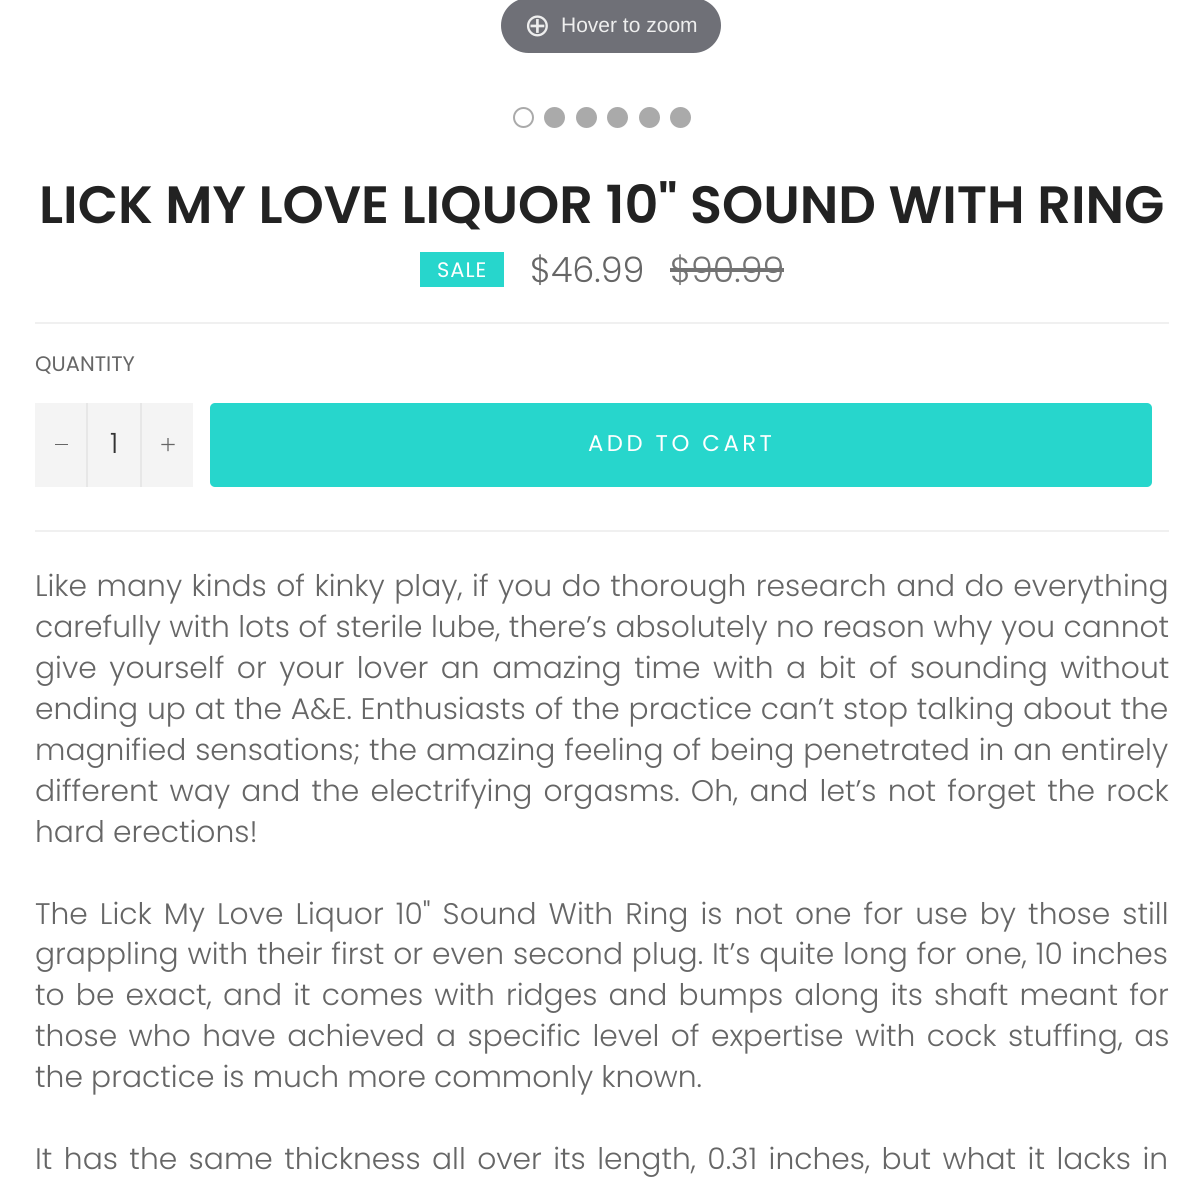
#include <cairo/cairo.h>
#include <math.h>
#include <stddef.h>


static void draw_spaced(cairo_t *cr, double x, double y, const char *s, double letter, double word) {
  cairo_move_to(cr, x, y);
  while (*s) {
    char ch[5] = {0};
    int n = 0;
    do ch[n++] = *s++; while ((*s & 0xC0) == 0x80);
    cairo_show_text(cr, ch);
    cairo_rel_move_to(cr, letter + word * (*ch == ' '), 0);
  }
}

static void rounded_rect(cairo_t *cr, double x, double y, double w, double h, double r) {
  cairo_new_sub_path(cr);
  cairo_arc(cr, x + w - r, y + h - r, r, 0, M_PI / 2);
  cairo_arc(cr, x + r, y + h - r, r, M_PI / 2, M_PI);
  cairo_arc(cr, x + r, y + r, r, M_PI, 1.5 * M_PI);
  cairo_arc(cr, x + w - r, y + r, r, 1.5 * M_PI, 2 * M_PI);
  cairo_close_path(cr);
}

static void draw_image(cairo_t *cr, const char *path, double x, double y, double w, double h) {
  cairo_surface_t *image = cairo_image_surface_create_from_png(path);
  cairo_save(cr);
  cairo_set_source_surface(cr, image, x, y);
  cairo_rectangle(cr, x, y, w, h);
  cairo_fill(cr);
  cairo_restore(cr);
  cairo_surface_destroy(image);
}

static void draw(cairo_t *cr) {
  cairo_set_source_rgb(cr, 1, 1, 1);
  cairo_paint(cr);
  cairo_set_source_rgb(cr, 111 / 255.0, 112 / 255.0, 119 / 255.0);
  rounded_rect(cr, 501, -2, 220, 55, 27.5);
  cairo_fill(cr);
  cairo_set_source_rgb(cr, 170 / 255.0, 170 / 255.0, 170 / 255.0);
  cairo_arc(cr, 523.5, 117.5, 10.5, 0, 2 * M_PI);
  cairo_fill(cr);
  cairo_set_source_rgb(cr, 1, 1, 1);
  cairo_arc(cr, 523.5, 117.5, 8.5, 0, 2 * M_PI);
  cairo_fill(cr);
  cairo_set_source_rgb(cr, 170 / 255.0, 170 / 255.0, 170 / 255.0);
  cairo_arc(cr, 554.5, 117.5, 10.5, 0, 2 * M_PI);
  cairo_fill(cr);
  cairo_arc(cr, 586.5, 117.5, 10.5, 0, 2 * M_PI);
  cairo_fill(cr);
  cairo_arc(cr, 617.5, 117.5, 10.5, 0, 2 * M_PI);
  cairo_fill(cr);
  cairo_arc(cr, 649.5, 117.5, 10.5, 0, 2 * M_PI);
  cairo_fill(cr);
  cairo_arc(cr, 680.5, 117.5, 10.5, 0, 2 * M_PI);
  cairo_fill(cr);
  cairo_set_source_rgb(cr, 39 / 255.0, 214 / 255.0, 204 / 255.0);
  cairo_rectangle(cr, 420, 252, 84, 35);
  cairo_fill(cr);
  cairo_set_source_rgb(cr, 115 / 255.0, 115 / 255.0, 115 / 255.0);
  cairo_rectangle(cr, 670, 268, 114, 4);
  cairo_fill(cr);
  cairo_set_source_rgb(cr, 240 / 255.0, 240 / 255.0, 240 / 255.0);
  cairo_rectangle(cr, 35, 322, 1134, 2);
  cairo_fill(cr);
  cairo_set_source_rgb(cr, 244 / 255.0, 244 / 255.0, 244 / 255.0);
  cairo_rectangle(cr, 35, 403, 158, 84);
  cairo_fill(cr);
  cairo_set_source_rgb(cr, 231 / 255.0, 231 / 255.0, 231 / 255.0);
  cairo_rectangle(cr, 86, 403, 2, 84);
  cairo_fill(cr);
  cairo_set_source_rgb(cr, 102 / 255.0, 102 / 255.0, 102 / 255.0);
  cairo_rectangle(cr, 55, 444, 13, 1);
  cairo_fill(cr);
  cairo_set_source_rgb(cr, 231 / 255.0, 231 / 255.0, 231 / 255.0);
  cairo_rectangle(cr, 140, 403, 2, 84);
  cairo_fill(cr);
  draw_image(cr, "images/1.png", 161, 438, 14, 14);
  cairo_set_source_rgb(cr, 39 / 255.0, 214 / 255.0, 204 / 255.0);
  rounded_rect(cr, 210, 403, 942, 84, 5);
  cairo_fill(cr);
  cairo_set_source_rgb(cr, 240 / 255.0, 240 / 255.0, 240 / 255.0);
  cairo_rectangle(cr, 35, 530, 1134, 2);
  cairo_fill(cr);
  cairo_select_font_face(cr, "DejaVu Sans", CAIRO_FONT_SLANT_NORMAL, CAIRO_FONT_WEIGHT_NORMAL);
  cairo_set_font_size(cr, 32);
  cairo_set_source_rgb(cr, 238 / 255.0, 238 / 255.0, 238 / 255.0);
  cairo_move_to(cr, 524, 36);
  cairo_show_text(cr, "⊕");
  cairo_select_font_face(cr, "Liberation Sans", CAIRO_FONT_SLANT_NORMAL, CAIRO_FONT_WEIGHT_NORMAL);
  cairo_set_font_size(cr, 21);
  cairo_move_to(cr, 561, 32);
  cairo_show_text(cr, "Hover to zoom");
  cairo_select_font_face(cr, "Poppins SemiBold", CAIRO_FONT_SLANT_NORMAL, CAIRO_FONT_WEIGHT_NORMAL);
  cairo_set_font_size(cr, 52.5);
  cairo_set_source_rgb(cr, 34 / 255.0, 34 / 255.0, 34 / 255.0);
  cairo_move_to(cr, 39, 223);
  cairo_show_text(cr, "LICK MY LOVE LIQUOR 10\" SOUND WITH RING");
  cairo_select_font_face(cr, "Poppins", CAIRO_FONT_SLANT_NORMAL, CAIRO_FONT_WEIGHT_NORMAL);
  cairo_set_font_size(cr, 21);
  cairo_set_source_rgb(cr, 1, 1, 1);
  draw_spaced(cr, 437, 277, "SALE", 1, 0);
  cairo_select_font_face(cr, "Poppins Light", CAIRO_FONT_SLANT_NORMAL, CAIRO_FONT_WEIGHT_NORMAL);
  cairo_set_font_size(cr, 35);
  cairo_set_source_rgb(cr, 102 / 255.0, 102 / 255.0, 102 / 255.0);
  cairo_move_to(cr, 530, 282);
  cairo_show_text(cr, "$46.99");
  cairo_set_source_rgb(cr, 115 / 255.0, 115 / 255.0, 115 / 255.0);
  cairo_move_to(cr, 670, 282);
  cairo_show_text(cr, "$90.99");
  cairo_select_font_face(cr, "Poppins", CAIRO_FONT_SLANT_NORMAL, CAIRO_FONT_WEIGHT_NORMAL);
  cairo_set_font_size(cr, 21);
  cairo_set_source_rgb(cr, 102 / 255.0, 102 / 255.0, 102 / 255.0);
  cairo_move_to(cr, 35, 371);
  cairo_show_text(cr, "QUANTITY");
  cairo_select_font_face(cr, "Poppins Light", CAIRO_FONT_SLANT_NORMAL, CAIRO_FONT_WEIGHT_NORMAL);
  cairo_set_font_size(cr, 28);
  cairo_set_source_rgb(cr, 51 / 255.0, 51 / 255.0, 51 / 255.0);
  cairo_move_to(cr, 110, 453);
  cairo_show_text(cr, "1");
  cairo_select_font_face(cr, "Poppins", CAIRO_FONT_SLANT_NORMAL, CAIRO_FONT_WEIGHT_NORMAL);
  cairo_set_font_size(cr, 22.75);
  cairo_set_source_rgb(cr, 1, 1, 1);
  draw_spaced(cr, 588, 451, "ADD TO CART", 3.5, 0);
  cairo_select_font_face(cr, "Poppins Light", CAIRO_FONT_SLANT_NORMAL, CAIRO_FONT_WEIGHT_NORMAL);
  cairo_set_font_size(cr, 29.75);
  cairo_set_source_rgb(cr, 102 / 255.0, 102 / 255.0, 102 / 255.0);
  draw_spaced(cr, 35, 596, "Like many kinds of kinky play, if you do thorough research and do everything", 0, 1.3);
  draw_spaced(cr, 35, 637, "carefully with lots of sterile lube, there’s absolutely no reason why you cannot", 0, 0.25);
  draw_spaced(cr, 35, 678, "give yourself or your lover an amazing time with a bit of sounding without", 0, 4.4);
  draw_spaced(cr, 35, 719, "ending up at the A&E. Enthusiasts of the practice can’t stop talking about the", 0, 0.6);
  draw_spaced(cr, 35, 760, "magnified sensations; the amazing feeling of being penetrated in an entirely", 0, 0.75);
  draw_spaced(cr, 35, 801, "different way and the electrifying orgasms. Oh, and let’s not forget the rock", 0, 3);
  cairo_move_to(cr, 35, 842);
  cairo_show_text(cr, "hard erections!");
  draw_spaced(cr, 35, 924, "The Lick My Love Liquor 10\" Sound With Ring is not one for use by those still", 0, 3.9);
  draw_spaced(cr, 35, 964, "grappling with their first or even second plug. It’s quite long for one, 10 inches", 0, 0.75);
  draw_spaced(cr, 35, 1005, "to be exact, and it comes with ridges and bumps along its shaft meant for", 0, 3);
  draw_spaced(cr, 35, 1046, "those who have achieved a specific level of expertise with cock stuffing, as", 0, 3.25);
  cairo_move_to(cr, 35, 1087);
  cairo_show_text(cr, "the practice is much more commonly known.");
  draw_spaced(cr, 35, 1169, "It has the same thickness all over its length, 0.31 inches, but what it lacks in", 0, 3.25);
}

int main(void) {
  cairo_surface_t *surface = cairo_image_surface_create(CAIRO_FORMAT_RGB24, 1204, 1179);
  cairo_t *cr = cairo_create(surface);
  cairo_font_options_t *options = cairo_font_options_create();
  cairo_font_options_set_hint_metrics(options, CAIRO_HINT_METRICS_OFF);
  cairo_font_options_set_hint_style(options, CAIRO_HINT_STYLE_NONE);
  cairo_set_font_options(cr, options);
  cairo_set_miter_limit(cr, 4);
  draw(cr);
  cairo_surface_write_to_png(surface, "out.png");
  cairo_font_options_destroy(options);
  cairo_destroy(cr);
  cairo_surface_destroy(surface);
  return 0;
}
